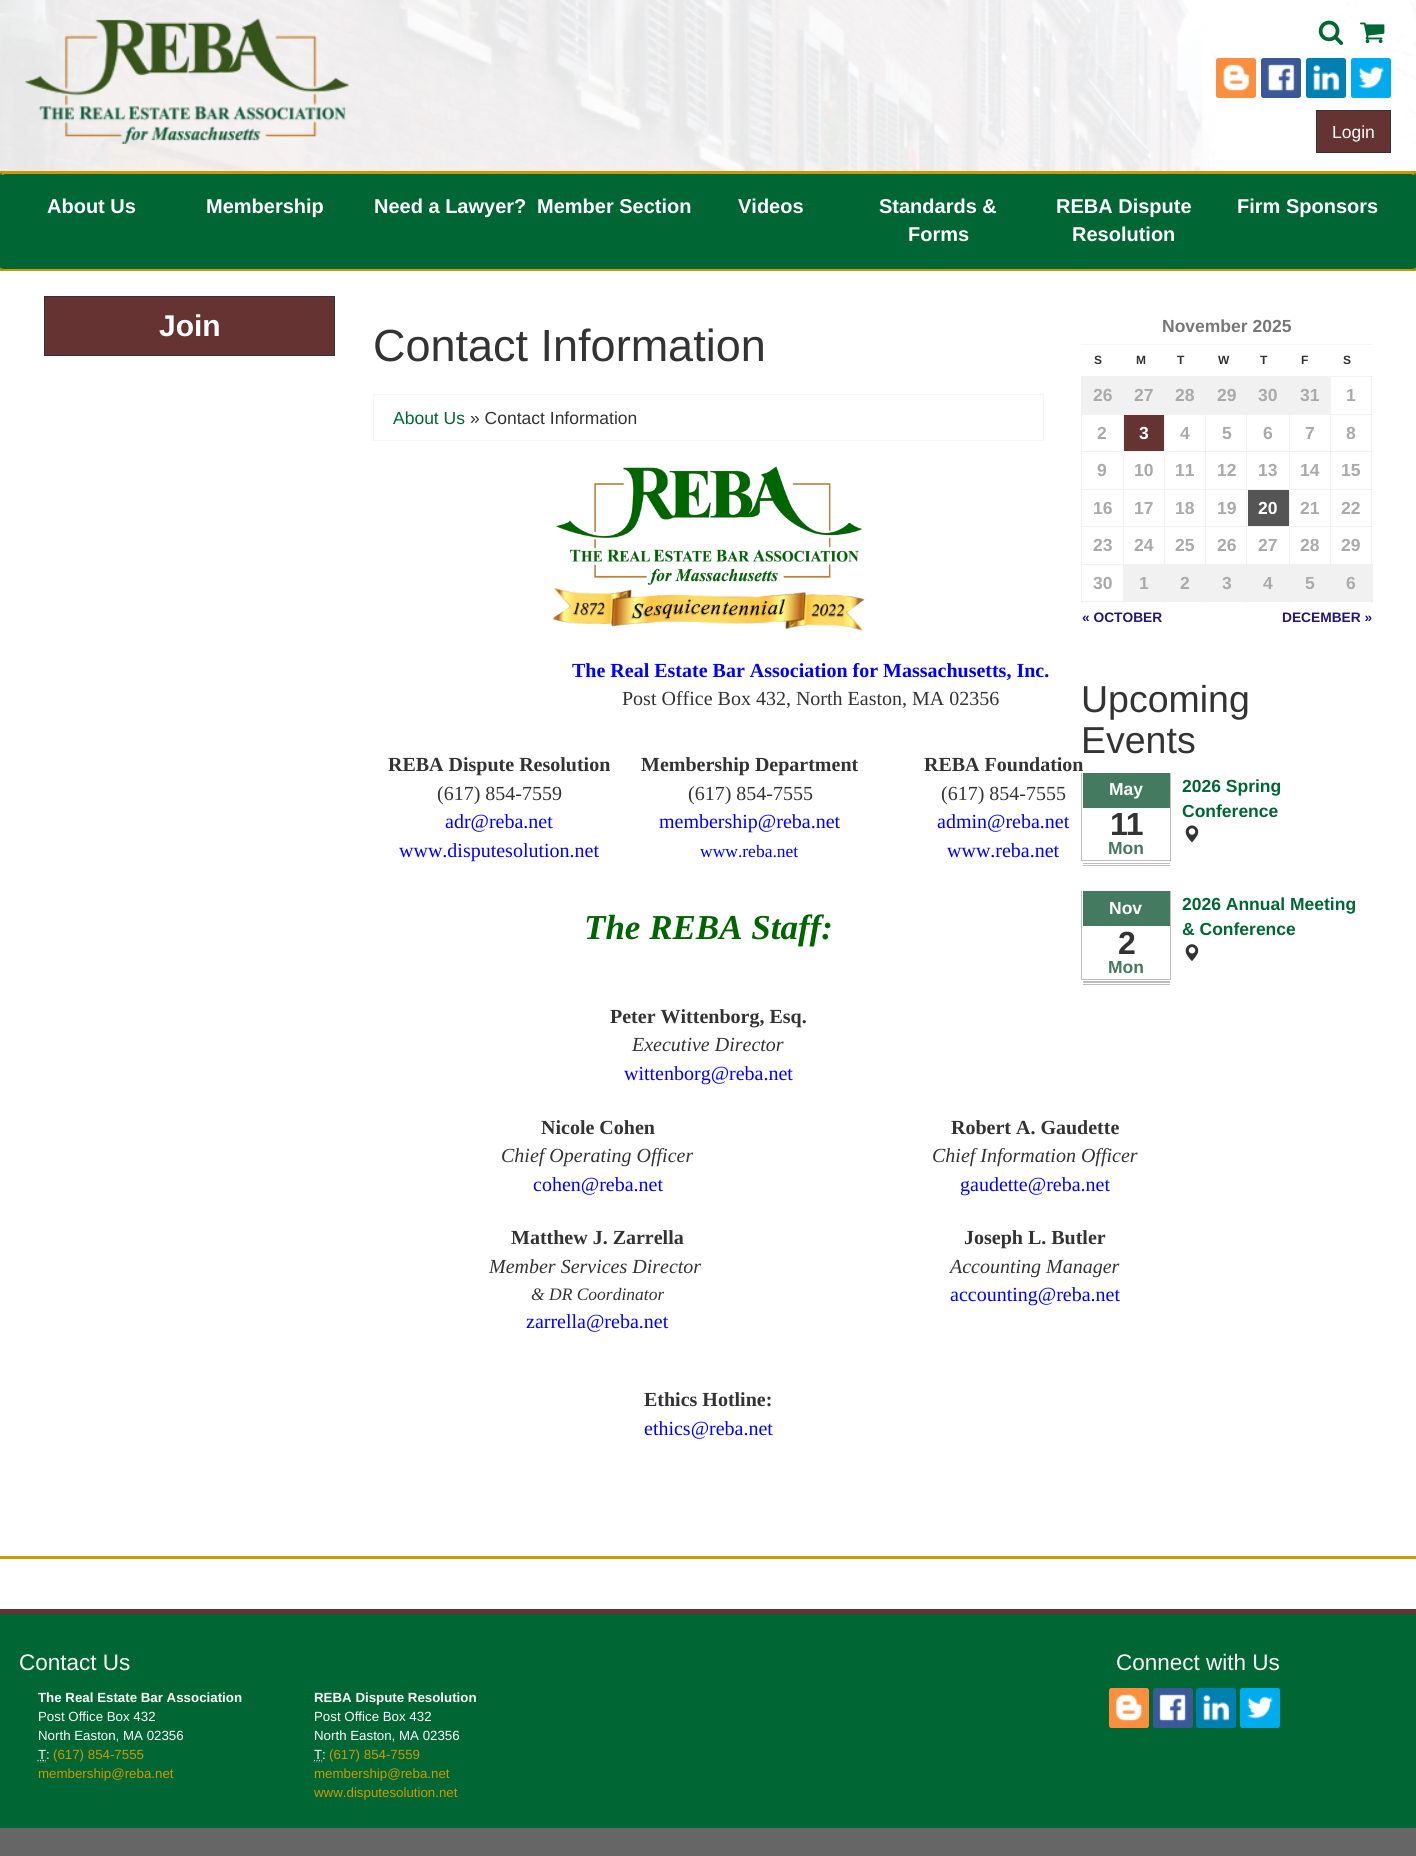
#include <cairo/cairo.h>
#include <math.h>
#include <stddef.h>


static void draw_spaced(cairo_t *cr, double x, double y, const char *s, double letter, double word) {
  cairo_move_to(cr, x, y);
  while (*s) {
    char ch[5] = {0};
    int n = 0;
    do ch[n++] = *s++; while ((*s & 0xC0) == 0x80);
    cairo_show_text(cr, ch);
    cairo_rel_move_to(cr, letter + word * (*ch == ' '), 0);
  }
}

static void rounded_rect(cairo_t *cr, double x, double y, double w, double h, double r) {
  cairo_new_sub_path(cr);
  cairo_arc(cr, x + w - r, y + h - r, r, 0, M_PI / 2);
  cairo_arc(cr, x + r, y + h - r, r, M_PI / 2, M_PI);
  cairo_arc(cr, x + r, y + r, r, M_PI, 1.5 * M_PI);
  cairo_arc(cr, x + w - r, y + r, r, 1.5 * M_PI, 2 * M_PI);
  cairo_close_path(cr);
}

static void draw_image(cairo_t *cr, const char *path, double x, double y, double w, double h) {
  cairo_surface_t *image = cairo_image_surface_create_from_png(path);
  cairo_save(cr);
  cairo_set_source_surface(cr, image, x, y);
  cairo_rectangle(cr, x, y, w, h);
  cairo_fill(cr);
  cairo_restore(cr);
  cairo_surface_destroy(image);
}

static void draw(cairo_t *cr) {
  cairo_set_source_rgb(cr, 1, 1, 1);
  cairo_paint(cr);
  draw_image(cr, "images/1.png", 0, 0, 1416, 171);
  draw_image(cr, "images/2.png", 25, 18, 324, 126);
  draw_image(cr, "images/3.png", 1318, 20, 26, 25);
  draw_image(cr, "images/4.png", 1360, 22, 25, 22);
  cairo_set_source_rgb(cr, 251 / 255.0, 143 / 255.0, 61 / 255.0);
  rounded_rect(cr, 1216, 58, 40, 40, 2.5);
  cairo_fill(cr);
  draw_image(cr, "images/5.png", 1222, 64, 28, 28);
  cairo_set_source_rgb(cr, 59 / 255.0, 89 / 255.0, 152 / 255.0);
  rounded_rect(cr, 1261, 58, 40, 40, 2.5);
  cairo_fill(cr);
  draw_image(cr, "images/6.png", 1267, 64, 28, 28);
  cairo_set_source_rgb(cr, 0, 127 / 255.0, 177 / 255.0);
  rounded_rect(cr, 1306, 58, 40, 40, 2.5);
  cairo_fill(cr);
  draw_image(cr, "images/7.png", 1312, 64, 28, 27);
  cairo_set_source_rgb(cr, 0, 172 / 255.0, 237 / 255.0);
  rounded_rect(cr, 1351, 58, 40, 40, 2.5);
  cairo_fill(cr);
  draw_image(cr, "images/8.png", 1358, 66, 26, 23);
  cairo_set_source_rgb(cr, 102 / 255.0, 51 / 255.0, 51 / 255.0);
  cairo_rectangle(cr, 1316.5, 110.5, 74, 42);
  cairo_fill_preserve(cr);
  cairo_set_source_rgb(cr, 51 / 255.0, 51 / 255.0, 51 / 255.0);
  cairo_set_line_width(cr, 1);
  cairo_stroke(cr);
  cairo_set_source_rgb(cr, 204 / 255.0, 153 / 255.0, 0);
  cairo_rectangle(cr, 0, 171, 1416, 100);
  cairo_fill(cr);
  cairo_set_source_rgb(cr, 0, 102 / 255.0, 51 / 255.0);
  rounded_rect(cr, 0, 171, 1416, 100, 5);
  cairo_fill(cr);
  cairo_set_source_rgb(cr, 204 / 255.0, 153 / 255.0, 0);
  cairo_new_path(cr);
  cairo_move_to(cr, 5, 174);
  cairo_line_to(cr, 2, 175);
  cairo_line_to(cr, 1, 173);
  cairo_line_to(cr, 3, 171);
  cairo_line_to(cr, 1413, 171);
  cairo_line_to(cr, 1415, 173);
  cairo_line_to(cr, 1414, 175);
  cairo_line_to(cr, 1411, 174);
  cairo_close_path(cr);
  cairo_fill(cr);
  cairo_new_path(cr);
  cairo_move_to(cr, 1415, 269);
  cairo_curve_to(cr, 1414, 270, 1413, 271, 1411, 271);
  cairo_line_to(cr, 5, 271);
  cairo_curve_to(cr, 3, 271, 2, 270, 1, 269);
  cairo_line_to(cr, 2, 268);
  cairo_curve_to(cr, 2, 269, 4, 269, 5, 269);
  cairo_line_to(cr, 1411, 269);
  cairo_curve_to(cr, 1412, 269, 1414, 269, 1414, 268);
  cairo_close_path(cr);
  cairo_fill(cr);
  cairo_set_source_rgb(cr, 102 / 255.0, 51 / 255.0, 51 / 255.0);
  cairo_rectangle(cr, 44.5, 296.5, 290, 59);
  cairo_fill_preserve(cr);
  cairo_set_source_rgb(cr, 51 / 255.0, 51 / 255.0, 51 / 255.0);
  cairo_stroke(cr);
  cairo_rectangle(cr, 373.5, 394.5, 670, 46);
  cairo_set_source_rgb(cr, 245 / 255.0, 245 / 255.0, 245 / 255.0);
  cairo_stroke(cr);
  draw_image(cr, "images/9.png", 553, 466, 312, 165);
  cairo_rectangle(cr, 1081, 344, 292, 1);
  cairo_fill(cr);
  cairo_set_source_rgb(cr, 241 / 255.0, 241 / 255.0, 241 / 255.0);
  cairo_rectangle(cr, 1081, 376, 249, 38);
  cairo_fill(cr);
  cairo_rectangle(cr, 1330, 376, 43, 1);
  cairo_fill(cr);
  cairo_rectangle(cr, 1330, 414, 43, 1);
  cairo_fill(cr);
  cairo_rectangle(cr, 1330, 451, 43, 1);
  cairo_fill(cr);
  cairo_rectangle(cr, 1330, 489, 43, 1);
  cairo_fill(cr);
  cairo_rectangle(cr, 1330, 526, 43, 1);
  cairo_fill(cr);
  cairo_rectangle(cr, 1331, 564, 42, 37);
  cairo_fill(cr);
  cairo_rectangle(cr, 1371, 526, 1, 39);
  cairo_fill(cr);
  cairo_rectangle(cr, 1371, 489, 1, 39);
  cairo_fill(cr);
  cairo_rectangle(cr, 1371, 451, 1, 39);
  cairo_fill(cr);
  cairo_rectangle(cr, 1371, 414, 1, 39);
  cairo_fill(cr);
  cairo_rectangle(cr, 1371, 376, 1, 39);
  cairo_fill(cr);
  cairo_rectangle(cr, 1371, 601, 1, 2);
  cairo_fill(cr);
  cairo_rectangle(cr, 1330, 601, 43, 1);
  cairo_fill(cr);
  cairo_rectangle(cr, 1330, 564, 1, 39);
  cairo_fill(cr);
  cairo_rectangle(cr, 1330, 526, 1, 39);
  cairo_fill(cr);
  cairo_rectangle(cr, 1289, 526, 42, 1);
  cairo_fill(cr);
  cairo_rectangle(cr, 1330, 489, 1, 39);
  cairo_fill(cr);
  cairo_rectangle(cr, 1289, 489, 42, 1);
  cairo_fill(cr);
  cairo_rectangle(cr, 1330, 451, 1, 39);
  cairo_fill(cr);
  cairo_rectangle(cr, 1289, 451, 42, 1);
  cairo_fill(cr);
  cairo_rectangle(cr, 1330, 414, 1, 39);
  cairo_fill(cr);
  cairo_rectangle(cr, 1289, 414, 42, 1);
  cairo_fill(cr);
  cairo_rectangle(cr, 1330, 376, 1, 39);
  cairo_fill(cr);
  cairo_rectangle(cr, 1289, 601, 42, 1);
  cairo_fill(cr);
  cairo_rectangle(cr, 1289, 564, 1, 39);
  cairo_fill(cr);
  cairo_rectangle(cr, 1289, 526, 1, 39);
  cairo_fill(cr);
  cairo_rectangle(cr, 1246, 526, 44, 1);
  cairo_fill(cr);
  cairo_rectangle(cr, 1289, 489, 1, 39);
  cairo_fill(cr);
  cairo_rectangle(cr, 1246, 489, 44, 1);
  cairo_fill(cr);
  cairo_rectangle(cr, 1289, 451, 1, 39);
  cairo_fill(cr);
  cairo_rectangle(cr, 1246, 451, 44, 1);
  cairo_fill(cr);
  cairo_rectangle(cr, 1289, 414, 1, 39);
  cairo_fill(cr);
  cairo_rectangle(cr, 1246, 414, 44, 1);
  cairo_fill(cr);
  cairo_rectangle(cr, 1206, 564, 83, 37);
  cairo_fill(cr);
  cairo_rectangle(cr, 1246, 526, 1, 39);
  cairo_fill(cr);
  cairo_rectangle(cr, 1205, 526, 43, 1);
  cairo_fill(cr);
  cairo_rectangle(cr, 1246, 489, 1, 39);
  cairo_fill(cr);
  cairo_rectangle(cr, 1205, 489, 43, 1);
  cairo_fill(cr);
  cairo_rectangle(cr, 1246, 451, 1, 39);
  cairo_fill(cr);
  cairo_rectangle(cr, 1205, 451, 43, 1);
  cairo_fill(cr);
  cairo_rectangle(cr, 1246, 414, 1, 39);
  cairo_fill(cr);
  cairo_rectangle(cr, 1205, 414, 43, 1);
  cairo_fill(cr);
  cairo_rectangle(cr, 1205, 601, 85, 1);
  cairo_fill(cr);
  cairo_rectangle(cr, 1205, 564, 1, 39);
  cairo_fill(cr);
  cairo_rectangle(cr, 1205, 526, 1, 39);
  cairo_fill(cr);
  cairo_rectangle(cr, 1164, 526, 42, 1);
  cairo_fill(cr);
  cairo_rectangle(cr, 1205, 489, 1, 39);
  cairo_fill(cr);
  cairo_rectangle(cr, 1164, 489, 42, 1);
  cairo_fill(cr);
  cairo_rectangle(cr, 1205, 451, 1, 39);
  cairo_fill(cr);
  cairo_rectangle(cr, 1164, 451, 42, 1);
  cairo_fill(cr);
  cairo_rectangle(cr, 1205, 414, 1, 39);
  cairo_fill(cr);
  cairo_rectangle(cr, 1164, 414, 42, 1);
  cairo_fill(cr);
  cairo_rectangle(cr, 1164, 601, 42, 1);
  cairo_fill(cr);
  cairo_rectangle(cr, 1164, 564, 1, 39);
  cairo_fill(cr);
  cairo_rectangle(cr, 1164, 526, 1, 39);
  cairo_fill(cr);
  cairo_rectangle(cr, 1123, 526, 42, 1);
  cairo_fill(cr);
  cairo_rectangle(cr, 1164, 489, 1, 39);
  cairo_fill(cr);
  cairo_rectangle(cr, 1123, 489, 42, 1);
  cairo_fill(cr);
  cairo_rectangle(cr, 1164, 451, 1, 39);
  cairo_fill(cr);
  cairo_rectangle(cr, 1123, 451, 42, 1);
  cairo_fill(cr);
  cairo_rectangle(cr, 1164, 414, 1, 39);
  cairo_fill(cr);
  cairo_rectangle(cr, 1123, 414, 42, 1);
  cairo_fill(cr);
  cairo_rectangle(cr, 1123, 601, 42, 1);
  cairo_fill(cr);
  cairo_rectangle(cr, 1123, 564, 1, 39);
  cairo_fill(cr);
  cairo_rectangle(cr, 1081, 564, 43, 1);
  cairo_fill(cr);
  cairo_rectangle(cr, 1123, 526, 1, 39);
  cairo_fill(cr);
  cairo_rectangle(cr, 1081, 526, 43, 1);
  cairo_fill(cr);
  cairo_rectangle(cr, 1123, 489, 1, 39);
  cairo_fill(cr);
  cairo_rectangle(cr, 1081, 489, 43, 1);
  cairo_fill(cr);
  cairo_rectangle(cr, 1123, 451, 1, 39);
  cairo_fill(cr);
  cairo_rectangle(cr, 1081, 451, 43, 1);
  cairo_fill(cr);
  cairo_rectangle(cr, 1123, 414, 1, 39);
  cairo_fill(cr);
  cairo_rectangle(cr, 1081, 414, 43, 1);
  cairo_fill(cr);
  cairo_rectangle(cr, 1081, 601, 43, 1);
  cairo_fill(cr);
  cairo_rectangle(cr, 1081, 564, 1, 39);
  cairo_fill(cr);
  cairo_rectangle(cr, 1081, 526, 1, 39);
  cairo_fill(cr);
  cairo_rectangle(cr, 1081, 489, 1, 39);
  cairo_fill(cr);
  cairo_rectangle(cr, 1081, 451, 1, 39);
  cairo_fill(cr);
  cairo_rectangle(cr, 1081, 414, 1, 39);
  cairo_fill(cr);
  cairo_set_source_rgb(cr, 102 / 255.0, 51 / 255.0, 51 / 255.0);
  cairo_rectangle(cr, 1124, 415, 40, 36);
  cairo_fill(cr);
  cairo_set_source_rgb(cr, 85 / 255.0, 85 / 255.0, 85 / 255.0);
  cairo_rectangle(cr, 1248, 490, 41, 36);
  cairo_fill(cr);
  cairo_set_source_rgb(cr, 241 / 255.0, 241 / 255.0, 241 / 255.0);
  cairo_rectangle(cr, 1124, 564, 40, 37);
  cairo_fill(cr);
  cairo_rectangle(cr, 1165, 564, 40, 37);
  cairo_fill(cr);
  cairo_rectangle(cr, 1246, 602, 1, 1);
  cairo_fill(cr);
  cairo_rectangle(cr, 1290, 564, 40, 37);
  cairo_fill(cr);
  cairo_set_source_rgb(cr, 189 / 255.0, 189 / 255.0, 189 / 255.0);
  cairo_rectangle(cr, 1083, 865, 87, 1);
  cairo_fill(cr);
  cairo_rectangle(cr, 1083, 863, 87, 1);
  cairo_fill(cr);
  draw_image(cr, "images/10.png", 1185, 825, 14, 18);
  cairo_save(cr);
  cairo_rectangle(cr, 1081, 891, 292, 100);
  cairo_clip(cr);
  cairo_rectangle(cr, 1081.5, 890.5, 89, 89);
  cairo_stroke(cr);
  cairo_restore(cr);
  cairo_rectangle(cr, 1083, 984, 87, 1);
  cairo_fill(cr);
  cairo_rectangle(cr, 1083, 981, 87, 2);
  cairo_fill(cr);
  cairo_set_source_rgb(cr, 68 / 255.0, 122 / 255.0, 95 / 255.0);
  cairo_rectangle(cr, 1083, 891, 87, 35);
  cairo_fill(cr);
  draw_image(cr, "images/11.png", 1185, 944, 14, 17);
  cairo_set_source_rgb(cr, 204 / 255.0, 153 / 255.0, 0);
  cairo_rectangle(cr, 0, 1556, 1416, 3);
  cairo_fill(cr);
  cairo_set_source_rgb(cr, 0, 102 / 255.0, 51 / 255.0);
  cairo_rectangle(cr, 0, 1614, 1416, 214);
  cairo_fill(cr);
  cairo_set_source_rgb(cr, 102 / 255.0, 51 / 255.0, 51 / 255.0);
  cairo_rectangle(cr, 0, 1609, 1416, 5);
  cairo_fill(cr);
  cairo_new_path(cr);
  cairo_move_to(cr, 37.5, 1762);
  cairo_line_to(cr, 38.5, 1762);
  cairo_move_to(cr, 40, 1762);
  cairo_line_to(cr, 41, 1762);
  cairo_move_to(cr, 42.5, 1762);
  cairo_line_to(cr, 44, 1762);
  cairo_move_to(cr, 45, 1762);
  cairo_line_to(cr, 46, 1762);
  cairo_set_source_rgb(cr, 119 / 255.0, 119 / 255.0, 119 / 255.0);
  cairo_set_line_width(cr, 1.2);
  cairo_stroke(cr);
  cairo_new_path(cr);
  cairo_move_to(cr, 37.5, 1760.5);
  cairo_line_to(cr, 38.5, 1760.5);
  cairo_move_to(cr, 40, 1760.5);
  cairo_line_to(cr, 41, 1760.5);
  cairo_move_to(cr, 42.5, 1760.5);
  cairo_line_to(cr, 44, 1760.5);
  cairo_move_to(cr, 45, 1760.5);
  cairo_line_to(cr, 45.5, 1760.5);
  cairo_set_source_rgb(cr, 1, 1, 1);
  cairo_stroke(cr);
  cairo_new_path(cr);
  cairo_move_to(cr, 314, 1762);
  cairo_line_to(cr, 315, 1762);
  cairo_move_to(cr, 316.5, 1762);
  cairo_line_to(cr, 317.5, 1762);
  cairo_move_to(cr, 319, 1762);
  cairo_line_to(cr, 320, 1762);
  cairo_move_to(cr, 321, 1762);
  cairo_line_to(cr, 322.5, 1762);
  cairo_set_source_rgb(cr, 119 / 255.0, 119 / 255.0, 119 / 255.0);
  cairo_stroke(cr);
  cairo_new_path(cr);
  cairo_move_to(cr, 314, 1760.5);
  cairo_line_to(cr, 315, 1760.5);
  cairo_move_to(cr, 316.5, 1760.5);
  cairo_line_to(cr, 317.5, 1760.5);
  cairo_move_to(cr, 319, 1760.5);
  cairo_line_to(cr, 320, 1760.5);
  cairo_move_to(cr, 321.5, 1760.5);
  cairo_line_to(cr, 322, 1760.5);
  cairo_set_source_rgb(cr, 1, 1, 1);
  cairo_stroke(cr);
  cairo_set_source_rgb(cr, 251 / 255.0, 143 / 255.0, 61 / 255.0);
  rounded_rect(cr, 1109, 1688, 40, 40, 2.5);
  cairo_fill(cr);
  draw_image(cr, "images/12.png", 1115, 1694, 28, 28);
  cairo_set_source_rgb(cr, 59 / 255.0, 89 / 255.0, 152 / 255.0);
  rounded_rect(cr, 1153, 1688, 40, 40, 2.5);
  cairo_fill(cr);
  draw_image(cr, "images/13.png", 1159, 1694, 28, 28);
  cairo_set_source_rgb(cr, 0, 127 / 255.0, 177 / 255.0);
  rounded_rect(cr, 1196, 1688, 40, 40, 2.5);
  cairo_fill(cr);
  draw_image(cr, "images/7.png", 1202, 1694, 28, 27);
  cairo_set_source_rgb(cr, 0, 172 / 255.0, 237 / 255.0);
  rounded_rect(cr, 1240, 1688, 40, 40, 2.5);
  cairo_fill(cr);
  draw_image(cr, "images/14.png", 1247, 1696, 26, 23);
  cairo_set_source_rgb(cr, 102 / 255.0, 102 / 255.0, 102 / 255.0);
  cairo_rectangle(cr, 0, 1828, 1416, 28);
  cairo_fill(cr);
  cairo_select_font_face(cr, "Liberation Sans", CAIRO_FONT_SLANT_NORMAL, CAIRO_FONT_WEIGHT_NORMAL);
  cairo_set_font_size(cr, 17.5);
  cairo_set_source_rgb(cr, 1, 1, 1);
  cairo_move_to(cr, 1332, 138);
  cairo_show_text(cr, "Login");
  cairo_select_font_face(cr, "Liberation Sans", CAIRO_FONT_SLANT_NORMAL, CAIRO_FONT_WEIGHT_BOLD);
  cairo_set_font_size(cr, 20);
  cairo_move_to(cr, 47, 213);
  cairo_show_text(cr, "About Us");
  cairo_move_to(cr, 206, 213);
  cairo_show_text(cr, "Membership");
  cairo_move_to(cr, 374, 213);
  cairo_show_text(cr, "Need a Lawyer?");
  cairo_move_to(cr, 537, 213);
  cairo_show_text(cr, "Member Section");
  cairo_move_to(cr, 738, 213);
  cairo_show_text(cr, "Videos");
  cairo_move_to(cr, 879, 213);
  cairo_show_text(cr, "Standards &");
  cairo_move_to(cr, 908, 241);
  cairo_show_text(cr, "Forms");
  cairo_move_to(cr, 1056, 213);
  cairo_show_text(cr, "REBA Dispute");
  cairo_move_to(cr, 1072, 241);
  cairo_show_text(cr, "Resolution");
  cairo_move_to(cr, 1237, 213);
  cairo_show_text(cr, "Firm Sponsors");
  cairo_set_font_size(cr, 30);
  cairo_move_to(cr, 159, 336);
  cairo_show_text(cr, "Join");
  cairo_select_font_face(cr, "Liberation Sans", CAIRO_FONT_SLANT_NORMAL, CAIRO_FONT_WEIGHT_NORMAL);
  cairo_set_font_size(cr, 45);
  cairo_set_source_rgb(cr, 51 / 255.0, 51 / 255.0, 51 / 255.0);
  cairo_move_to(cr, 373, 361);
  cairo_show_text(cr, "Contact Information");
  cairo_set_font_size(cr, 17.5);
  cairo_set_source_rgb(cr, 0, 102 / 255.0, 51 / 255.0);
  cairo_move_to(cr, 393, 424);
  cairo_show_text(cr, "About Us");
  cairo_set_source_rgb(cr, 51 / 255.0, 51 / 255.0, 51 / 255.0);
  cairo_move_to(cr, 470, 424);
  cairo_show_text(cr, "» Contact Information");
  cairo_select_font_face(cr, "Liberation Serif", CAIRO_FONT_SLANT_NORMAL, CAIRO_FONT_WEIGHT_BOLD);
  cairo_set_font_size(cr, 20);
  cairo_set_source_rgb(cr, 0, 0, 1);
  cairo_move_to(cr, 572, 677);
  cairo_show_text(cr, "The Real Estate Bar Association for Massachusetts, Inc.");
  cairo_select_font_face(cr, "Liberation Serif", CAIRO_FONT_SLANT_NORMAL, CAIRO_FONT_WEIGHT_NORMAL);
  cairo_set_source_rgb(cr, 51 / 255.0, 51 / 255.0, 51 / 255.0);
  cairo_move_to(cr, 622, 705);
  cairo_show_text(cr, "Post Office Box 432, North Easton, MA 02356");
  cairo_select_font_face(cr, "Liberation Serif", CAIRO_FONT_SLANT_NORMAL, CAIRO_FONT_WEIGHT_BOLD);
  cairo_move_to(cr, 388, 771);
  cairo_show_text(cr, "REBA Dispute Resolution");
  cairo_select_font_face(cr, "Liberation Serif", CAIRO_FONT_SLANT_NORMAL, CAIRO_FONT_WEIGHT_NORMAL);
  cairo_move_to(cr, 437, 800);
  cairo_show_text(cr, "(617) 854-7559");
  cairo_set_source_rgb(cr, 0, 0, 1);
  cairo_move_to(cr, 445, 828);
  cairo_show_text(cr, "adr@reba.net");
  cairo_move_to(cr, 399, 857);
  cairo_show_text(cr, "www.disputesolution.net");
  cairo_select_font_face(cr, "Liberation Serif", CAIRO_FONT_SLANT_NORMAL, CAIRO_FONT_WEIGHT_BOLD);
  cairo_set_source_rgb(cr, 51 / 255.0, 51 / 255.0, 51 / 255.0);
  cairo_move_to(cr, 641, 771);
  cairo_show_text(cr, "Membership Department");
  cairo_select_font_face(cr, "Liberation Serif", CAIRO_FONT_SLANT_NORMAL, CAIRO_FONT_WEIGHT_NORMAL);
  cairo_move_to(cr, 688, 800);
  cairo_show_text(cr, "(617) 854-7555");
  cairo_set_source_rgb(cr, 0, 0, 1);
  cairo_move_to(cr, 659, 828);
  cairo_show_text(cr, "membership@reba.net");
  cairo_set_font_size(cr, 17.5);
  cairo_move_to(cr, 700, 857);
  cairo_show_text(cr, "www.reba.net");
  cairo_select_font_face(cr, "Liberation Serif", CAIRO_FONT_SLANT_NORMAL, CAIRO_FONT_WEIGHT_BOLD);
  cairo_set_font_size(cr, 20);
  cairo_set_source_rgb(cr, 51 / 255.0, 51 / 255.0, 51 / 255.0);
  cairo_move_to(cr, 924, 771);
  cairo_show_text(cr, "REBA Foundation");
  cairo_select_font_face(cr, "Liberation Serif", CAIRO_FONT_SLANT_NORMAL, CAIRO_FONT_WEIGHT_NORMAL);
  cairo_move_to(cr, 941, 800);
  cairo_show_text(cr, "(617) 854-7555");
  cairo_set_source_rgb(cr, 0, 0, 1);
  cairo_move_to(cr, 937, 828);
  cairo_show_text(cr, "admin@reba.net");
  cairo_move_to(cr, 947, 857);
  cairo_show_text(cr, "www.reba.net");
  cairo_select_font_face(cr, "Liberation Serif", CAIRO_FONT_SLANT_ITALIC, CAIRO_FONT_WEIGHT_BOLD);
  cairo_set_font_size(cr, 35);
  cairo_set_source_rgb(cr, 0, 100 / 255.0, 0);
  cairo_move_to(cr, 584, 939);
  cairo_show_text(cr, "The REBA Staff:");
  cairo_select_font_face(cr, "Liberation Serif", CAIRO_FONT_SLANT_NORMAL, CAIRO_FONT_WEIGHT_BOLD);
  cairo_set_font_size(cr, 20);
  cairo_set_source_rgb(cr, 51 / 255.0, 51 / 255.0, 51 / 255.0);
  cairo_move_to(cr, 610, 1023);
  cairo_show_text(cr, "Peter Wittenborg, Esq.");
  cairo_select_font_face(cr, "Liberation Serif", CAIRO_FONT_SLANT_ITALIC, CAIRO_FONT_WEIGHT_NORMAL);
  cairo_move_to(cr, 632, 1051);
  cairo_show_text(cr, "Executive Director");
  cairo_select_font_face(cr, "Liberation Serif", CAIRO_FONT_SLANT_NORMAL, CAIRO_FONT_WEIGHT_NORMAL);
  cairo_set_source_rgb(cr, 0, 0, 1);
  cairo_move_to(cr, 624, 1080);
  cairo_show_text(cr, "wittenborg@reba.net");
  cairo_select_font_face(cr, "Liberation Serif", CAIRO_FONT_SLANT_NORMAL, CAIRO_FONT_WEIGHT_BOLD);
  cairo_set_source_rgb(cr, 51 / 255.0, 51 / 255.0, 51 / 255.0);
  cairo_move_to(cr, 541, 1134);
  cairo_show_text(cr, "Nicole Cohen");
  cairo_select_font_face(cr, "Liberation Serif", CAIRO_FONT_SLANT_ITALIC, CAIRO_FONT_WEIGHT_NORMAL);
  cairo_move_to(cr, 501, 1162);
  cairo_show_text(cr, "Chief Operating Officer");
  cairo_select_font_face(cr, "Liberation Serif", CAIRO_FONT_SLANT_NORMAL, CAIRO_FONT_WEIGHT_NORMAL);
  cairo_set_source_rgb(cr, 0, 0, 1);
  cairo_move_to(cr, 533, 1191);
  cairo_show_text(cr, "cohen@reba.net");
  cairo_select_font_face(cr, "Liberation Serif", CAIRO_FONT_SLANT_NORMAL, CAIRO_FONT_WEIGHT_BOLD);
  cairo_set_source_rgb(cr, 51 / 255.0, 51 / 255.0, 51 / 255.0);
  cairo_move_to(cr, 511, 1244);
  cairo_show_text(cr, "Matthew J. Zarrella");
  cairo_select_font_face(cr, "Liberation Serif", CAIRO_FONT_SLANT_ITALIC, CAIRO_FONT_WEIGHT_NORMAL);
  cairo_move_to(cr, 489, 1273);
  cairo_show_text(cr, "Member Services Director");
  cairo_set_font_size(cr, 17.5);
  cairo_move_to(cr, 531, 1300);
  cairo_show_text(cr, "& DR Coordinator");
  cairo_select_font_face(cr, "Liberation Serif", CAIRO_FONT_SLANT_NORMAL, CAIRO_FONT_WEIGHT_NORMAL);
  cairo_set_font_size(cr, 20);
  cairo_set_source_rgb(cr, 0, 0, 1);
  cairo_move_to(cr, 526, 1328);
  cairo_show_text(cr, "zarrella@reba.net");
  cairo_select_font_face(cr, "Liberation Serif", CAIRO_FONT_SLANT_NORMAL, CAIRO_FONT_WEIGHT_BOLD);
  cairo_set_source_rgb(cr, 51 / 255.0, 51 / 255.0, 51 / 255.0);
  cairo_move_to(cr, 951, 1134);
  cairo_show_text(cr, "Robert A. Gaudette");
  cairo_select_font_face(cr, "Liberation Serif", CAIRO_FONT_SLANT_ITALIC, CAIRO_FONT_WEIGHT_NORMAL);
  cairo_move_to(cr, 932, 1162);
  cairo_show_text(cr, "Chief Information Officer");
  cairo_select_font_face(cr, "Liberation Serif", CAIRO_FONT_SLANT_NORMAL, CAIRO_FONT_WEIGHT_NORMAL);
  cairo_set_source_rgb(cr, 0, 0, 1);
  cairo_move_to(cr, 960, 1191);
  cairo_show_text(cr, "gaudette@reba.net");
  cairo_select_font_face(cr, "Liberation Serif", CAIRO_FONT_SLANT_NORMAL, CAIRO_FONT_WEIGHT_BOLD);
  cairo_set_source_rgb(cr, 51 / 255.0, 51 / 255.0, 51 / 255.0);
  cairo_move_to(cr, 964, 1244);
  cairo_show_text(cr, "Joseph L. Butler");
  cairo_select_font_face(cr, "Liberation Serif", CAIRO_FONT_SLANT_ITALIC, CAIRO_FONT_WEIGHT_NORMAL);
  cairo_move_to(cr, 950, 1273);
  cairo_show_text(cr, "Accounting Manager");
  cairo_select_font_face(cr, "Liberation Serif", CAIRO_FONT_SLANT_NORMAL, CAIRO_FONT_WEIGHT_NORMAL);
  cairo_set_source_rgb(cr, 0, 0, 1);
  cairo_move_to(cr, 950, 1301);
  cairo_show_text(cr, "accounting@reba.net");
  cairo_select_font_face(cr, "Liberation Serif", CAIRO_FONT_SLANT_NORMAL, CAIRO_FONT_WEIGHT_BOLD);
  cairo_set_source_rgb(cr, 51 / 255.0, 51 / 255.0, 51 / 255.0);
  cairo_move_to(cr, 644, 1406);
  cairo_show_text(cr, "Ethics Hotline:");
  cairo_select_font_face(cr, "Liberation Serif", CAIRO_FONT_SLANT_NORMAL, CAIRO_FONT_WEIGHT_NORMAL);
  cairo_set_source_rgb(cr, 0, 0, 1);
  cairo_move_to(cr, 644, 1435);
  cairo_show_text(cr, "ethics@reba.net");
  cairo_select_font_face(cr, "Liberation Sans", CAIRO_FONT_SLANT_NORMAL, CAIRO_FONT_WEIGHT_BOLD);
  cairo_set_font_size(cr, 17.5);
  cairo_set_source_rgb(cr, 119 / 255.0, 119 / 255.0, 119 / 255.0);
  cairo_move_to(cr, 1162, 332);
  cairo_show_text(cr, "November 2025");
  cairo_set_font_size(cr, 12);
  cairo_set_source_rgb(cr, 51 / 255.0, 51 / 255.0, 51 / 255.0);
  cairo_move_to(cr, 1094, 364);
  cairo_show_text(cr, "S");
  cairo_move_to(cr, 1136, 364);
  cairo_show_text(cr, "M");
  cairo_move_to(cr, 1177, 364);
  cairo_show_text(cr, "T");
  cairo_move_to(cr, 1218, 364);
  cairo_show_text(cr, "W");
  cairo_move_to(cr, 1260, 364);
  cairo_show_text(cr, "T");
  cairo_move_to(cr, 1301, 364);
  cairo_show_text(cr, "F");
  cairo_move_to(cr, 1343, 364);
  cairo_show_text(cr, "S");
  cairo_set_font_size(cr, 17.5);
  cairo_set_source_rgb(cr, 170 / 255.0, 170 / 255.0, 170 / 255.0);
  cairo_move_to(cr, 1093, 401);
  cairo_show_text(cr, "26");
  cairo_move_to(cr, 1134, 401);
  cairo_show_text(cr, "27");
  cairo_move_to(cr, 1175, 401);
  cairo_show_text(cr, "28");
  cairo_move_to(cr, 1217, 401);
  cairo_show_text(cr, "29");
  cairo_move_to(cr, 1258, 401);
  cairo_show_text(cr, "30");
  cairo_move_to(cr, 1300, 401);
  cairo_show_text(cr, "31");
  cairo_move_to(cr, 1346, 401);
  cairo_show_text(cr, "1");
  cairo_move_to(cr, 1097, 439);
  cairo_show_text(cr, "2");
  cairo_set_source_rgb(cr, 1, 1, 1);
  cairo_move_to(cr, 1139, 439);
  cairo_show_text(cr, "3");
  cairo_set_source_rgb(cr, 170 / 255.0, 170 / 255.0, 170 / 255.0);
  cairo_move_to(cr, 1180, 439);
  cairo_show_text(cr, "4");
  cairo_move_to(cr, 1222, 439);
  cairo_show_text(cr, "5");
  cairo_move_to(cr, 1263, 439);
  cairo_show_text(cr, "6");
  cairo_move_to(cr, 1305, 439);
  cairo_show_text(cr, "7");
  cairo_move_to(cr, 1346, 439);
  cairo_show_text(cr, "8");
  cairo_move_to(cr, 1097, 476);
  cairo_show_text(cr, "9");
  cairo_move_to(cr, 1134, 476);
  cairo_show_text(cr, "10");
  cairo_move_to(cr, 1175, 476);
  cairo_show_text(cr, "11");
  cairo_move_to(cr, 1217, 476);
  cairo_show_text(cr, "12");
  cairo_move_to(cr, 1258, 476);
  cairo_show_text(cr, "13");
  cairo_move_to(cr, 1300, 476);
  cairo_show_text(cr, "14");
  cairo_move_to(cr, 1341, 476);
  cairo_show_text(cr, "15");
  cairo_move_to(cr, 1093, 514);
  cairo_show_text(cr, "16");
  cairo_move_to(cr, 1134, 514);
  cairo_show_text(cr, "17");
  cairo_move_to(cr, 1175, 514);
  cairo_show_text(cr, "18");
  cairo_move_to(cr, 1217, 514);
  cairo_show_text(cr, "19");
  cairo_set_source_rgb(cr, 1, 1, 1);
  cairo_move_to(cr, 1258, 514);
  cairo_show_text(cr, "20");
  cairo_set_source_rgb(cr, 170 / 255.0, 170 / 255.0, 170 / 255.0);
  cairo_move_to(cr, 1300, 514);
  cairo_show_text(cr, "21");
  cairo_move_to(cr, 1341, 514);
  cairo_show_text(cr, "22");
  cairo_move_to(cr, 1093, 551);
  cairo_show_text(cr, "23");
  cairo_move_to(cr, 1134, 551);
  cairo_show_text(cr, "24");
  cairo_move_to(cr, 1175, 551);
  cairo_show_text(cr, "25");
  cairo_move_to(cr, 1217, 551);
  cairo_show_text(cr, "26");
  cairo_move_to(cr, 1258, 551);
  cairo_show_text(cr, "27");
  cairo_move_to(cr, 1300, 551);
  cairo_show_text(cr, "28");
  cairo_move_to(cr, 1341, 551);
  cairo_show_text(cr, "29");
  cairo_move_to(cr, 1093, 589);
  cairo_show_text(cr, "30");
  cairo_move_to(cr, 1139, 589);
  cairo_show_text(cr, "1");
  cairo_move_to(cr, 1180, 589);
  cairo_show_text(cr, "2");
  cairo_move_to(cr, 1222, 589);
  cairo_show_text(cr, "3");
  cairo_move_to(cr, 1263, 589);
  cairo_show_text(cr, "4");
  cairo_move_to(cr, 1305, 589);
  cairo_show_text(cr, "5");
  cairo_move_to(cr, 1346, 589);
  cairo_show_text(cr, "6");
  cairo_set_font_size(cr, 13.75);
  cairo_set_source_rgb(cr, 36 / 255.0, 23 / 255.0, 115 / 255.0);
  cairo_move_to(cr, 1082, 622);
  cairo_show_text(cr, "« OCTOBER");
  cairo_move_to(cr, 1282, 622);
  cairo_show_text(cr, "DECEMBER »");
  cairo_select_font_face(cr, "Liberation Sans", CAIRO_FONT_SLANT_NORMAL, CAIRO_FONT_WEIGHT_NORMAL);
  cairo_set_font_size(cr, 37.5);
  cairo_set_source_rgb(cr, 51 / 255.0, 51 / 255.0, 51 / 255.0);
  cairo_move_to(cr, 1081, 712);
  cairo_show_text(cr, "Upcoming");
  cairo_move_to(cr, 1081, 753);
  cairo_show_text(cr, "Events");
  cairo_save(cr);
  cairo_rectangle(cr, 1081, 773, 292, 100);
  cairo_clip(cr);
  cairo_rectangle(cr, 1081.5, 771.5, 89, 89);
  cairo_set_source_rgb(cr, 189 / 255.0, 189 / 255.0, 189 / 255.0);
  cairo_set_line_width(cr, 1);
  cairo_stroke(cr);
  cairo_restore(cr);
  cairo_set_source_rgb(cr, 68 / 255.0, 122 / 255.0, 95 / 255.0);
  cairo_rectangle(cr, 1083, 773, 87, 35);
  cairo_fill(cr);
  cairo_select_font_face(cr, "Liberation Sans", CAIRO_FONT_SLANT_NORMAL, CAIRO_FONT_WEIGHT_BOLD);
  cairo_set_font_size(cr, 17.5);
  cairo_set_source_rgb(cr, 1, 1, 1);
  cairo_move_to(cr, 1109, 795);
  cairo_show_text(cr, "May");
  cairo_set_font_size(cr, 32);
  cairo_set_source_rgb(cr, 51 / 255.0, 51 / 255.0, 51 / 255.0);
  draw_spaced(cr, 1110, 835, "11", -2, 0);
  cairo_set_font_size(cr, 17.5);
  cairo_set_source_rgb(cr, 68 / 255.0, 122 / 255.0, 95 / 255.0);
  cairo_move_to(cr, 1108, 854);
  cairo_show_text(cr, "Mon");
  cairo_set_source_rgb(cr, 0, 102 / 255.0, 51 / 255.0);
  cairo_move_to(cr, 1182, 792);
  cairo_show_text(cr, "2026 Spring");
  cairo_move_to(cr, 1182, 817);
  cairo_show_text(cr, "Conference");
  cairo_set_source_rgb(cr, 1, 1, 1);
  cairo_move_to(cr, 1109, 914);
  cairo_show_text(cr, "Nov");
  cairo_set_font_size(cr, 32);
  cairo_set_source_rgb(cr, 51 / 255.0, 51 / 255.0, 51 / 255.0);
  draw_spaced(cr, 1118, 954, "2", -2, 0);
  cairo_set_font_size(cr, 17.5);
  cairo_set_source_rgb(cr, 68 / 255.0, 122 / 255.0, 95 / 255.0);
  cairo_move_to(cr, 1108, 973);
  cairo_show_text(cr, "Mon");
  cairo_set_source_rgb(cr, 0, 102 / 255.0, 51 / 255.0);
  cairo_move_to(cr, 1182, 910);
  cairo_show_text(cr, "2026 Annual Meeting");
  cairo_move_to(cr, 1182, 935);
  cairo_show_text(cr, "& Conference");
  cairo_select_font_face(cr, "Liberation Sans", CAIRO_FONT_SLANT_NORMAL, CAIRO_FONT_WEIGHT_NORMAL);
  cairo_set_font_size(cr, 22.5);
  cairo_set_source_rgb(cr, 1, 1, 1);
  cairo_move_to(cr, 19, 1670);
  cairo_show_text(cr, "Contact Us");
  cairo_select_font_face(cr, "Liberation Sans", CAIRO_FONT_SLANT_NORMAL, CAIRO_FONT_WEIGHT_BOLD);
  cairo_set_font_size(cr, 13.3);
  cairo_move_to(cr, 38, 1702);
  cairo_show_text(cr, "The Real Estate Bar Association");
  cairo_select_font_face(cr, "Liberation Sans", CAIRO_FONT_SLANT_NORMAL, CAIRO_FONT_WEIGHT_NORMAL);
  cairo_move_to(cr, 38, 1721);
  cairo_show_text(cr, "Post Office Box 432");
  cairo_move_to(cr, 38, 1740);
  cairo_show_text(cr, "North Easton, MA 02356");
  cairo_move_to(cr, 38, 1759);
  cairo_show_text(cr, "T:");
  cairo_set_source_rgb(cr, 204 / 255.0, 153 / 255.0, 0);
  cairo_move_to(cr, 53, 1759);
  cairo_show_text(cr, "(617) 854-7555");
  cairo_move_to(cr, 38, 1778);
  cairo_show_text(cr, "membership@reba.net");
  cairo_select_font_face(cr, "Liberation Sans", CAIRO_FONT_SLANT_NORMAL, CAIRO_FONT_WEIGHT_BOLD);
  cairo_set_source_rgb(cr, 1, 1, 1);
  cairo_move_to(cr, 314, 1702);
  cairo_show_text(cr, "REBA Dispute Resolution");
  cairo_select_font_face(cr, "Liberation Sans", CAIRO_FONT_SLANT_NORMAL, CAIRO_FONT_WEIGHT_NORMAL);
  cairo_move_to(cr, 314, 1721);
  cairo_show_text(cr, "Post Office Box 432");
  cairo_move_to(cr, 314, 1740);
  cairo_show_text(cr, "North Easton, MA 02356");
  cairo_move_to(cr, 314, 1759);
  cairo_show_text(cr, "T:");
  cairo_set_source_rgb(cr, 204 / 255.0, 153 / 255.0, 0);
  cairo_move_to(cr, 329, 1759);
  cairo_show_text(cr, "(617) 854-7559");
  cairo_move_to(cr, 314, 1778);
  cairo_show_text(cr, "membership@reba.net");
  cairo_move_to(cr, 314, 1797);
  cairo_show_text(cr, "www.disputesolution.net");
  cairo_set_font_size(cr, 22.5);
  cairo_set_source_rgb(cr, 1, 1, 1);
  cairo_move_to(cr, 1116, 1670);
  cairo_show_text(cr, "Connect with Us");
}

int main(void) {
  cairo_surface_t *surface = cairo_image_surface_create(CAIRO_FORMAT_RGB24, 1416, 1856);
  cairo_t *cr = cairo_create(surface);
  cairo_font_options_t *options = cairo_font_options_create();
  cairo_font_options_set_hint_metrics(options, CAIRO_HINT_METRICS_OFF);
  cairo_font_options_set_hint_style(options, CAIRO_HINT_STYLE_NONE);
  cairo_set_font_options(cr, options);
  cairo_set_miter_limit(cr, 4);
  draw(cr);
  cairo_surface_write_to_png(surface, "out.png");
  cairo_font_options_destroy(options);
  cairo_destroy(cr);
  cairo_surface_destroy(surface);
  return 0;
}
